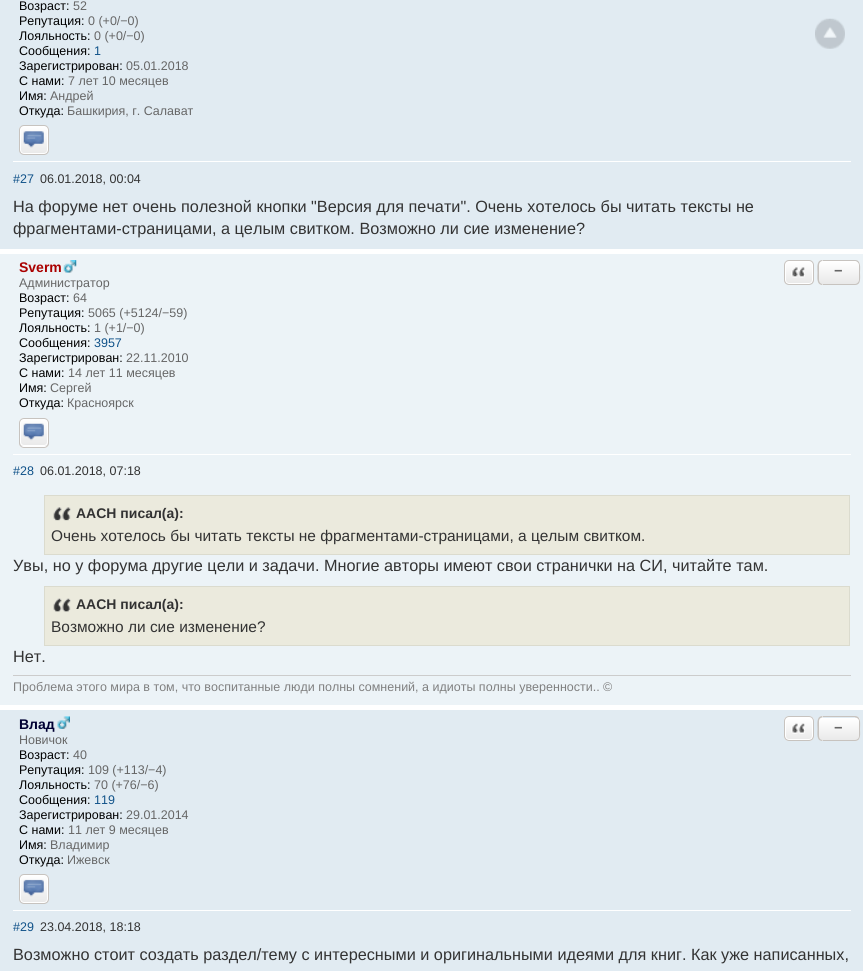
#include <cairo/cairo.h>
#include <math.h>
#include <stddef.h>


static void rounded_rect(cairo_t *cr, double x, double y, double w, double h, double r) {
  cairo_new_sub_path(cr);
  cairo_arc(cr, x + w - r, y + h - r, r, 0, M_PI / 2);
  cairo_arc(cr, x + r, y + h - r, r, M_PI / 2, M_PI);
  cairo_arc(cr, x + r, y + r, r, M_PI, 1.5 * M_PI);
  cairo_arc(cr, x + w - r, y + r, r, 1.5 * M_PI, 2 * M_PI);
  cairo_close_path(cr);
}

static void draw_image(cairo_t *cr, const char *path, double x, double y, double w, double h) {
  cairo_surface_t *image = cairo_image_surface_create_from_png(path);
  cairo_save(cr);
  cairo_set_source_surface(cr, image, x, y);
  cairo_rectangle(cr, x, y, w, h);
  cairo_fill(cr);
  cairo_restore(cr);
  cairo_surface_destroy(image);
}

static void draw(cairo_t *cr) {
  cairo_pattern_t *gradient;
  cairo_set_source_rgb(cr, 1, 1, 1);
  cairo_paint(cr);
  cairo_set_source_rgb(cr, 225 / 255.0, 235 / 255.0, 242 / 255.0);
  cairo_rectangle(cr, 0, 0, 863, 249);
  cairo_fill(cr);
  cairo_set_source_rgb(cr, 1, 1, 1);
  cairo_rectangle(cr, 13, 161, 838, 1);
  cairo_fill(cr);
  cairo_save(cr);
  rounded_rect(cr, 19, 125, 30, 30, 5);
  cairo_clip(cr);
  gradient = cairo_pattern_create_linear(34, 126, 34, 154);
  cairo_pattern_add_color_stop_rgba(gradient, 0, 1, 1, 1, 1);
  cairo_pattern_add_color_stop_rgba(gradient, 1, 233 / 255.0, 233 / 255.0, 233 / 255.0, 1);
  cairo_set_source(cr, gradient);
  cairo_pattern_destroy(gradient);
  cairo_rectangle(cr, 19, 126, 30, 28);
  cairo_fill(cr);
  cairo_restore(cr);
  rounded_rect(cr, 20.5, 126.5, 27, 27, 3.5);
  cairo_set_line_width(cr, 1);
  cairo_stroke(cr);
  rounded_rect(cr, 19.5, 125.5, 29, 29, 4.5);
  cairo_set_source_rgb(cr, 199 / 255.0, 195 / 255.0, 191 / 255.0);
  cairo_stroke(cr);
  draw_image(cr, "images/1.png", 23, 131, 21, 17);
  cairo_set_source_rgb(cr, 236 / 255.0, 243 / 255.0, 247 / 255.0);
  cairo_rectangle(cr, 0, 254, 863, 451);
  cairo_fill(cr);
  cairo_set_source_rgb(cr, 1, 1, 1);
  cairo_rectangle(cr, 13, 454, 838, 1);
  cairo_fill(cr);
  draw_image(cr, "images/2.png", 63, 260, 14, 13);
  rounded_rect(cr, 19, 418, 30, 30, 5);
  cairo_fill(cr);
  cairo_save(cr);
  rounded_rect(cr, 19, 418, 30, 30, 5);
  cairo_clip(cr);
  gradient = cairo_pattern_create_linear(34, 419, 34, 446);
  cairo_pattern_add_color_stop_rgba(gradient, 0, 1, 1, 1, 1);
  cairo_pattern_add_color_stop_rgba(gradient, 1, 233 / 255.0, 233 / 255.0, 233 / 255.0, 1);
  cairo_set_source(cr, gradient);
  cairo_pattern_destroy(gradient);
  cairo_rectangle(cr, 19, 419, 30, 27);
  cairo_fill(cr);
  cairo_restore(cr);
  rounded_rect(cr, 20.5, 419.5, 27, 26, 3.5);
  cairo_stroke(cr);
  rounded_rect(cr, 19.5, 418.5, 29, 29, 4.5);
  cairo_set_source_rgb(cr, 199 / 255.0, 195 / 255.0, 191 / 255.0);
  cairo_stroke(cr);
  draw_image(cr, "images/3.png", 23, 423, 21, 18);
  cairo_save(cr);
  rounded_rect(cr, 784, 260, 30, 25, 5);
  cairo_clip(cr);
  gradient = cairo_pattern_create_linear(799, 261, 799, 284);
  cairo_pattern_add_color_stop_rgba(gradient, 0, 1, 1, 1, 1);
  cairo_pattern_add_color_stop_rgba(gradient, 1, 233 / 255.0, 233 / 255.0, 233 / 255.0, 1);
  cairo_set_source(cr, gradient);
  cairo_pattern_destroy(gradient);
  cairo_rectangle(cr, 784, 261, 30, 23);
  cairo_fill(cr);
  cairo_restore(cr);
  rounded_rect(cr, 785.5, 261.5, 27, 22, 3.5);
  cairo_set_source_rgb(cr, 1, 1, 1);
  cairo_stroke(cr);
  rounded_rect(cr, 784.5, 260.5, 29, 24, 4.5);
  cairo_set_source_rgb(cr, 199 / 255.0, 195 / 255.0, 191 / 255.0);
  cairo_stroke(cr);
  draw_image(cr, "images/4.png", 791, 267, 14, 11);
  cairo_set_source_rgb(cr, 1, 1, 1);
  cairo_new_path(cr);
  cairo_move_to(cr, 823, 260);
  cairo_line_to(cr, 823, 285);
  cairo_curve_to(cr, 820, 285, 818, 283, 818, 280);
  cairo_line_to(cr, 818, 265);
  cairo_curve_to(cr, 818, 262, 820, 260, 823, 260);
  cairo_close_path(cr);
  cairo_fill(cr);
  cairo_save(cr);
  cairo_new_path(cr);
  cairo_move_to(cr, 823, 260);
  cairo_line_to(cr, 823, 285);
  cairo_curve_to(cr, 820, 285, 818, 283, 818, 280);
  cairo_line_to(cr, 818, 265);
  cairo_curve_to(cr, 818, 262, 820, 260, 823, 260);
  cairo_close_path(cr);
  cairo_clip(cr);
  gradient = cairo_pattern_create_linear(821, 261, 821, 284);
  cairo_pattern_add_color_stop_rgba(gradient, 0, 1, 1, 1, 1);
  cairo_pattern_add_color_stop_rgba(gradient, 1, 233 / 255.0, 233 / 255.0, 233 / 255.0, 1);
  cairo_set_source(cr, gradient);
  cairo_pattern_destroy(gradient);
  cairo_rectangle(cr, 818, 261, 5, 23);
  cairo_fill(cr);
  cairo_restore(cr);
  cairo_set_source_rgb(cr, 199 / 255.0, 195 / 255.0, 191 / 255.0);
  cairo_set_fill_rule(cr, CAIRO_FILL_RULE_EVEN_ODD);
  cairo_new_path(cr);
  cairo_move_to(cr, 822.5, 260);
  cairo_line_to(cr, 822.5, 285);
  cairo_curve_to(cr, 816, 285, 817.5, 276.5, 817.5, 272.5);
  cairo_curve_to(cr, 817.5, 268.5, 816, 260, 822.5, 260);
  cairo_close_path(cr);
  cairo_move_to(cr, 822.5, 261);
  cairo_line_to(cr, 822.5, 284);
  cairo_curve_to(cr, 820.5, 284, 819, 282, 819, 280);
  cairo_line_to(cr, 819, 265);
  cairo_curve_to(cr, 819, 263, 820.5, 261, 822.5, 261);
  cairo_close_path(cr);
  cairo_fill(cr);
  gradient = cairo_pattern_create_linear(839, 261, 839, 284);
  cairo_pattern_add_color_stop_rgba(gradient, 0, 1, 1, 1, 1);
  cairo_pattern_add_color_stop_rgba(gradient, 1, 233 / 255.0, 233 / 255.0, 233 / 255.0, 1);
  cairo_set_source(cr, gradient);
  cairo_pattern_destroy(gradient);
  cairo_rectangle(cr, 823, 261, 32, 23);
  cairo_fill(cr);
  cairo_set_source_rgb(cr, 199 / 255.0, 195 / 255.0, 191 / 255.0);
  cairo_rectangle(cr, 823, 260, 32, 1);
  cairo_fill(cr);
  cairo_rectangle(cr, 823, 284, 32, 1);
  cairo_fill(cr);
  cairo_save(cr);
  cairo_set_fill_rule(cr, CAIRO_FILL_RULE_WINDING);
  cairo_new_path(cr);
  cairo_move_to(cr, 855, 260);
  cairo_curve_to(cr, 858, 260, 860, 262, 860, 265);
  cairo_line_to(cr, 860, 280);
  cairo_curve_to(cr, 860, 283, 858, 285, 855, 285);
  cairo_close_path(cr);
  cairo_clip(cr);
  gradient = cairo_pattern_create_linear(857, 261, 857, 284);
  cairo_pattern_add_color_stop_rgba(gradient, 0, 1, 1, 1, 1);
  cairo_pattern_add_color_stop_rgba(gradient, 1, 233 / 255.0, 233 / 255.0, 233 / 255.0, 1);
  cairo_set_source(cr, gradient);
  cairo_pattern_destroy(gradient);
  cairo_rectangle(cr, 855, 261, 5, 23);
  cairo_fill(cr);
  cairo_restore(cr);
  cairo_new_path(cr);
  cairo_move_to(cr, 855, 260);
  cairo_curve_to(cr, 861.5, 260, 860, 268.5, 860, 272.5);
  cairo_curve_to(cr, 860, 276.5, 861.5, 285, 855, 285);
  cairo_close_path(cr);
  cairo_move_to(cr, 855, 261);
  cairo_curve_to(cr, 857, 261, 859, 263, 859, 265);
  cairo_line_to(cr, 859, 280);
  cairo_curve_to(cr, 859, 282, 857, 284, 855, 284);
  cairo_close_path(cr);
  cairo_fill(cr);
  cairo_set_source_rgb(cr, 235 / 255.0, 234 / 255.0, 221 / 255.0);
  cairo_rectangle(cr, 45, 496, 804, 58);
  cairo_fill(cr);
  draw_image(cr, "images/5.png", 53, 507, 18, 14);
  cairo_rectangle(cr, 44.5, 495.5, 805, 59);
  cairo_set_source_rgb(cr, 219 / 255.0, 219 / 255.0, 206 / 255.0);
  cairo_stroke(cr);
  cairo_set_source_rgb(cr, 235 / 255.0, 234 / 255.0, 221 / 255.0);
  cairo_rectangle(cr, 45, 587, 804, 58);
  cairo_fill(cr);
  draw_image(cr, "images/6.png", 53, 598, 18, 14);
  cairo_rectangle(cr, 44.5, 586.5, 805, 59);
  cairo_set_source_rgb(cr, 219 / 255.0, 219 / 255.0, 206 / 255.0);
  cairo_stroke(cr);
  cairo_set_source_rgb(cr, 204 / 255.0, 204 / 255.0, 204 / 255.0);
  cairo_rectangle(cr, 13, 675, 838, 1);
  cairo_fill(cr);
  cairo_set_source_rgb(cr, 225 / 255.0, 235 / 255.0, 242 / 255.0);
  cairo_rectangle(cr, 0, 710, 863, 261);
  cairo_fill(cr);
  cairo_set_source_rgb(cr, 1, 1, 1);
  cairo_rectangle(cr, 13, 910, 838, 1);
  cairo_fill(cr);
  draw_image(cr, "images/7.png", 57, 716, 13, 13);
  cairo_save(cr);
  cairo_set_fill_rule(cr, CAIRO_FILL_RULE_WINDING);
  rounded_rect(cr, 19, 874, 30, 30, 5);
  cairo_clip(cr);
  gradient = cairo_pattern_create_linear(34, 875, 34, 903);
  cairo_pattern_add_color_stop_rgba(gradient, 0, 1, 1, 1, 1);
  cairo_pattern_add_color_stop_rgba(gradient, 1, 233 / 255.0, 233 / 255.0, 233 / 255.0, 1);
  cairo_set_source(cr, gradient);
  cairo_pattern_destroy(gradient);
  cairo_rectangle(cr, 19, 875, 30, 28);
  cairo_fill(cr);
  cairo_restore(cr);
  rounded_rect(cr, 20.5, 875.5, 27, 27, 3.5);
  cairo_stroke(cr);
  rounded_rect(cr, 19.5, 874.5, 29, 29, 4.5);
  cairo_set_source_rgb(cr, 199 / 255.0, 195 / 255.0, 191 / 255.0);
  cairo_stroke(cr);
  draw_image(cr, "images/8.png", 23, 879, 21, 18);
  cairo_set_source_rgb(cr, 1, 1, 1);
  rounded_rect(cr, 784, 716, 30, 25, 5);
  cairo_fill(cr);
  cairo_save(cr);
  cairo_set_fill_rule(cr, CAIRO_FILL_RULE_WINDING);
  rounded_rect(cr, 784, 716, 30, 25, 5);
  cairo_clip(cr);
  gradient = cairo_pattern_create_linear(799, 718, 799, 740);
  cairo_pattern_add_color_stop_rgba(gradient, 0, 1, 1, 1, 1);
  cairo_pattern_add_color_stop_rgba(gradient, 1, 233 / 255.0, 233 / 255.0, 233 / 255.0, 1);
  cairo_set_source(cr, gradient);
  cairo_pattern_destroy(gradient);
  cairo_rectangle(cr, 784, 718, 30, 22);
  cairo_fill(cr);
  cairo_restore(cr);
  rounded_rect(cr, 785.5, 718.5, 27, 21, 3.5);
  cairo_stroke(cr);
  rounded_rect(cr, 784.5, 716.5, 29, 24, 4.5);
  cairo_set_source_rgb(cr, 199 / 255.0, 195 / 255.0, 191 / 255.0);
  cairo_stroke(cr);
  draw_image(cr, "images/9.png", 791, 723, 14, 11);
  cairo_set_source_rgb(cr, 1, 1, 1);
  cairo_new_path(cr);
  cairo_move_to(cr, 823, 716);
  cairo_line_to(cr, 823, 741);
  cairo_curve_to(cr, 820, 741, 818, 739, 818, 736);
  cairo_line_to(cr, 818, 721);
  cairo_curve_to(cr, 818, 718, 820, 716, 823, 716);
  cairo_close_path(cr);
  cairo_fill(cr);
  cairo_save(cr);
  cairo_set_fill_rule(cr, CAIRO_FILL_RULE_WINDING);
  cairo_new_path(cr);
  cairo_move_to(cr, 823, 716);
  cairo_line_to(cr, 823, 741);
  cairo_curve_to(cr, 820, 741, 818, 739, 818, 736);
  cairo_line_to(cr, 818, 721);
  cairo_curve_to(cr, 818, 718, 820, 716, 823, 716);
  cairo_close_path(cr);
  cairo_clip(cr);
  gradient = cairo_pattern_create_linear(821, 718, 821, 740);
  cairo_pattern_add_color_stop_rgba(gradient, 0, 1, 1, 1, 1);
  cairo_pattern_add_color_stop_rgba(gradient, 1, 233 / 255.0, 233 / 255.0, 233 / 255.0, 1);
  cairo_set_source(cr, gradient);
  cairo_pattern_destroy(gradient);
  cairo_rectangle(cr, 818, 718, 5, 22);
  cairo_fill(cr);
  cairo_restore(cr);
  cairo_set_source_rgb(cr, 199 / 255.0, 195 / 255.0, 191 / 255.0);
  cairo_new_path(cr);
  cairo_move_to(cr, 822.5, 716);
  cairo_line_to(cr, 822.5, 741);
  cairo_curve_to(cr, 816, 741, 817.5, 733, 817.5, 729);
  cairo_curve_to(cr, 817.5, 724.5, 816, 716, 822.5, 716);
  cairo_close_path(cr);
  cairo_move_to(cr, 822.5, 717.5);
  cairo_line_to(cr, 822.5, 740);
  cairo_curve_to(cr, 820.5, 740, 819, 738.5, 819, 736);
  cairo_line_to(cr, 819, 721);
  cairo_curve_to(cr, 819, 719, 820.5, 717.5, 822.5, 717.5);
  cairo_close_path(cr);
  cairo_fill(cr);
  gradient = cairo_pattern_create_linear(839, 718, 839, 740);
  cairo_pattern_add_color_stop_rgba(gradient, 0, 1, 1, 1, 1);
  cairo_pattern_add_color_stop_rgba(gradient, 1, 233 / 255.0, 233 / 255.0, 233 / 255.0, 1);
  cairo_set_source(cr, gradient);
  cairo_pattern_destroy(gradient);
  cairo_rectangle(cr, 823, 718, 32, 22);
  cairo_fill(cr);
  cairo_set_source_rgb(cr, 199 / 255.0, 195 / 255.0, 191 / 255.0);
  cairo_rectangle(cr, 823, 716, 32, 1);
  cairo_fill(cr);
  cairo_rectangle(cr, 823, 740, 32, 1);
  cairo_fill(cr);
  cairo_set_source_rgb(cr, 1, 1, 1);
  cairo_new_path(cr);
  cairo_move_to(cr, 855, 716);
  cairo_curve_to(cr, 858, 716, 860, 718, 860, 721);
  cairo_line_to(cr, 860, 736);
  cairo_curve_to(cr, 860, 739, 858, 741, 855, 741);
  cairo_close_path(cr);
  cairo_fill(cr);
  cairo_save(cr);
  cairo_set_fill_rule(cr, CAIRO_FILL_RULE_WINDING);
  cairo_new_path(cr);
  cairo_move_to(cr, 855, 716);
  cairo_curve_to(cr, 858, 716, 860, 718, 860, 721);
  cairo_line_to(cr, 860, 736);
  cairo_curve_to(cr, 860, 739, 858, 741, 855, 741);
  cairo_close_path(cr);
  cairo_clip(cr);
  gradient = cairo_pattern_create_linear(857, 718, 857, 740);
  cairo_pattern_add_color_stop_rgba(gradient, 0, 1, 1, 1, 1);
  cairo_pattern_add_color_stop_rgba(gradient, 1, 233 / 255.0, 233 / 255.0, 233 / 255.0, 1);
  cairo_set_source(cr, gradient);
  cairo_pattern_destroy(gradient);
  cairo_rectangle(cr, 855, 718, 5, 22);
  cairo_fill(cr);
  cairo_restore(cr);
  cairo_set_source_rgb(cr, 199 / 255.0, 195 / 255.0, 191 / 255.0);
  cairo_new_path(cr);
  cairo_move_to(cr, 855, 716);
  cairo_curve_to(cr, 861.5, 716, 860, 724.5, 860, 729);
  cairo_curve_to(cr, 860, 733, 861.5, 741, 855, 741);
  cairo_close_path(cr);
  cairo_move_to(cr, 855, 717.5);
  cairo_curve_to(cr, 857, 717.5, 859, 719, 859, 721);
  cairo_line_to(cr, 859, 736);
  cairo_curve_to(cr, 859, 738.5, 857, 740, 855, 740);
  cairo_close_path(cr);
  cairo_fill(cr);
  draw_image(cr, "images/10.png", 815, 18, 30, 31);
  cairo_select_font_face(cr, "Liberation Sans", CAIRO_FONT_SLANT_NORMAL, CAIRO_FONT_WEIGHT_NORMAL);
  cairo_set_font_size(cr, 12.5);
  cairo_set_source_rgb(cr, 0, 0, 0);
  cairo_move_to(cr, 19, 10);
  cairo_show_text(cr, "Возраст:");
  cairo_set_source_rgb(cr, 102 / 255.0, 102 / 255.0, 102 / 255.0);
  cairo_move_to(cr, 73, 10);
  cairo_show_text(cr, "52");
  cairo_set_source_rgb(cr, 0, 0, 0);
  cairo_move_to(cr, 19, 25);
  cairo_show_text(cr, "Репутация:");
  cairo_set_source_rgb(cr, 102 / 255.0, 102 / 255.0, 102 / 255.0);
  cairo_move_to(cr, 88, 25);
  cairo_show_text(cr, "0 (+0/−0)");
  cairo_set_source_rgb(cr, 0, 0, 0);
  cairo_move_to(cr, 19, 40);
  cairo_show_text(cr, "Лояльность:");
  cairo_set_source_rgb(cr, 102 / 255.0, 102 / 255.0, 102 / 255.0);
  cairo_move_to(cr, 94, 40);
  cairo_show_text(cr, "0 (+0/−0)");
  cairo_set_source_rgb(cr, 0, 0, 0);
  cairo_move_to(cr, 19, 55);
  cairo_show_text(cr, "Сообщения:");
  cairo_set_source_rgb(cr, 16 / 255.0, 82 / 255.0, 137 / 255.0);
  cairo_move_to(cr, 94, 55);
  cairo_show_text(cr, "1");
  cairo_set_source_rgb(cr, 0, 0, 0);
  cairo_move_to(cr, 19, 70);
  cairo_show_text(cr, "Зарегистрирован:");
  cairo_set_source_rgb(cr, 102 / 255.0, 102 / 255.0, 102 / 255.0);
  cairo_move_to(cr, 126, 70);
  cairo_show_text(cr, "05.01.2018");
  cairo_set_source_rgb(cr, 0, 0, 0);
  cairo_move_to(cr, 19, 85);
  cairo_show_text(cr, "С нами:");
  cairo_set_source_rgb(cr, 102 / 255.0, 102 / 255.0, 102 / 255.0);
  cairo_move_to(cr, 68, 85);
  cairo_show_text(cr, "7 лет 10 месяцев");
  cairo_set_source_rgb(cr, 0, 0, 0);
  cairo_move_to(cr, 19, 100);
  cairo_show_text(cr, "Имя:");
  cairo_set_source_rgb(cr, 102 / 255.0, 102 / 255.0, 102 / 255.0);
  cairo_move_to(cr, 50, 100);
  cairo_show_text(cr, "Андрей");
  cairo_set_source_rgb(cr, 0, 0, 0);
  cairo_move_to(cr, 19, 115);
  cairo_show_text(cr, "Откуда:");
  cairo_set_source_rgb(cr, 102 / 255.0, 102 / 255.0, 102 / 255.0);
  cairo_move_to(cr, 67, 115);
  cairo_show_text(cr, "Башкирия, г. Салават");
  cairo_set_source_rgb(cr, 16 / 255.0, 82 / 255.0, 137 / 255.0);
  cairo_move_to(cr, 13, 183);
  cairo_show_text(cr, "#27");
  cairo_set_source_rgb(cr, 51 / 255.0, 51 / 255.0, 51 / 255.0);
  cairo_move_to(cr, 40, 183);
  cairo_show_text(cr, "06.01.2018, 00:04");
  cairo_set_font_size(cr, 16.25);
  cairo_move_to(cr, 13, 212);
  cairo_show_text(cr, "На форуме нет очень полезной кнопки \"Версия для печати\". Очень хотелось бы читать тексты не");
  cairo_move_to(cr, 13, 234);
  cairo_show_text(cr, "фрагментами-страницами, а целым свитком. Возможно ли сие изменение?");
  cairo_select_font_face(cr, "Liberation Sans", CAIRO_FONT_SLANT_NORMAL, CAIRO_FONT_WEIGHT_BOLD);
  cairo_set_font_size(cr, 14);
  cairo_set_source_rgb(cr, 170 / 255.0, 0, 0);
  cairo_move_to(cr, 19, 272);
  cairo_show_text(cr, "Sverm");
  cairo_select_font_face(cr, "Liberation Sans", CAIRO_FONT_SLANT_NORMAL, CAIRO_FONT_WEIGHT_NORMAL);
  cairo_set_font_size(cr, 12.5);
  cairo_set_source_rgb(cr, 102 / 255.0, 102 / 255.0, 102 / 255.0);
  cairo_move_to(cr, 19, 287);
  cairo_show_text(cr, "Администратор");
  cairo_set_source_rgb(cr, 0, 0, 0);
  cairo_move_to(cr, 19, 302);
  cairo_show_text(cr, "Возраст:");
  cairo_set_source_rgb(cr, 102 / 255.0, 102 / 255.0, 102 / 255.0);
  cairo_move_to(cr, 73, 302);
  cairo_show_text(cr, "64");
  cairo_set_source_rgb(cr, 0, 0, 0);
  cairo_move_to(cr, 19, 317);
  cairo_show_text(cr, "Репутация:");
  cairo_set_source_rgb(cr, 102 / 255.0, 102 / 255.0, 102 / 255.0);
  cairo_move_to(cr, 88, 317);
  cairo_show_text(cr, "5065 (+5124/−59)");
  cairo_set_source_rgb(cr, 0, 0, 0);
  cairo_move_to(cr, 19, 332);
  cairo_show_text(cr, "Лояльность:");
  cairo_set_source_rgb(cr, 102 / 255.0, 102 / 255.0, 102 / 255.0);
  cairo_move_to(cr, 94, 332);
  cairo_show_text(cr, "1 (+1/−0)");
  cairo_set_source_rgb(cr, 0, 0, 0);
  cairo_move_to(cr, 19, 347);
  cairo_show_text(cr, "Сообщения:");
  cairo_set_source_rgb(cr, 16 / 255.0, 82 / 255.0, 137 / 255.0);
  cairo_move_to(cr, 94, 347);
  cairo_show_text(cr, "3957");
  cairo_set_source_rgb(cr, 0, 0, 0);
  cairo_move_to(cr, 19, 362);
  cairo_show_text(cr, "Зарегистрирован:");
  cairo_set_source_rgb(cr, 102 / 255.0, 102 / 255.0, 102 / 255.0);
  cairo_move_to(cr, 126, 362);
  cairo_show_text(cr, "22.11.2010");
  cairo_set_source_rgb(cr, 0, 0, 0);
  cairo_move_to(cr, 19, 377);
  cairo_show_text(cr, "С нами:");
  cairo_set_source_rgb(cr, 102 / 255.0, 102 / 255.0, 102 / 255.0);
  cairo_move_to(cr, 68, 377);
  cairo_show_text(cr, "14 лет 11 месяцев");
  cairo_set_source_rgb(cr, 0, 0, 0);
  cairo_move_to(cr, 19, 392);
  cairo_show_text(cr, "Имя:");
  cairo_set_source_rgb(cr, 102 / 255.0, 102 / 255.0, 102 / 255.0);
  cairo_move_to(cr, 50, 392);
  cairo_show_text(cr, "Сергей");
  cairo_set_source_rgb(cr, 0, 0, 0);
  cairo_move_to(cr, 19, 407);
  cairo_show_text(cr, "Откуда:");
  cairo_set_source_rgb(cr, 102 / 255.0, 102 / 255.0, 102 / 255.0);
  cairo_move_to(cr, 67, 407);
  cairo_show_text(cr, "Красноярск");
  cairo_select_font_face(cr, "Open Sans", CAIRO_FONT_SLANT_NORMAL, CAIRO_FONT_WEIGHT_BOLD);
  cairo_set_font_size(cr, 15);
  cairo_move_to(cr, 834, 276);
  cairo_show_text(cr, "−");
  cairo_select_font_face(cr, "Liberation Sans", CAIRO_FONT_SLANT_NORMAL, CAIRO_FONT_WEIGHT_NORMAL);
  cairo_set_font_size(cr, 12.5);
  cairo_set_source_rgb(cr, 16 / 255.0, 82 / 255.0, 137 / 255.0);
  cairo_move_to(cr, 13, 475);
  cairo_show_text(cr, "#28");
  cairo_set_source_rgb(cr, 51 / 255.0, 51 / 255.0, 51 / 255.0);
  cairo_move_to(cr, 40, 475);
  cairo_show_text(cr, "06.01.2018, 07:18");
  cairo_select_font_face(cr, "Liberation Sans", CAIRO_FONT_SLANT_NORMAL, CAIRO_FONT_WEIGHT_BOLD);
  cairo_set_font_size(cr, 14);
  cairo_move_to(cr, 76, 518);
  cairo_show_text(cr, "AACH писал(а):");
  cairo_select_font_face(cr, "Liberation Sans", CAIRO_FONT_SLANT_NORMAL, CAIRO_FONT_WEIGHT_NORMAL);
  cairo_set_font_size(cr, 15.45);
  cairo_move_to(cr, 51, 541);
  cairo_show_text(cr, "Очень хотелось бы читать тексты не фрагментами-страницами, а целым свитком.");
  cairo_set_font_size(cr, 16.25);
  cairo_move_to(cr, 13, 571);
  cairo_show_text(cr, "Увы, но у форума другие цели и задачи. Многие авторы имеют свои странички на СИ, читайте там.");
  cairo_select_font_face(cr, "Liberation Sans", CAIRO_FONT_SLANT_NORMAL, CAIRO_FONT_WEIGHT_BOLD);
  cairo_set_font_size(cr, 14);
  cairo_move_to(cr, 76, 609);
  cairo_show_text(cr, "AACH писал(а):");
  cairo_select_font_face(cr, "Liberation Sans", CAIRO_FONT_SLANT_NORMAL, CAIRO_FONT_WEIGHT_NORMAL);
  cairo_set_font_size(cr, 15.45);
  cairo_move_to(cr, 51, 632);
  cairo_show_text(cr, "Возможно ли сие изменение?");
  cairo_set_font_size(cr, 16.25);
  cairo_move_to(cr, 13, 662);
  cairo_show_text(cr, "Нет.");
  cairo_set_font_size(cr, 12.5);
  cairo_set_source_rgb(cr, 128 / 255.0, 128 / 255.0, 128 / 255.0);
  cairo_move_to(cr, 13, 691);
  cairo_show_text(cr, "Проблема этого мира в том, что воспитанные люди полны сомнений, а идиоты полны уверенности.. ©");
  cairo_select_font_face(cr, "Liberation Sans", CAIRO_FONT_SLANT_NORMAL, CAIRO_FONT_WEIGHT_BOLD);
  cairo_set_font_size(cr, 14);
  cairo_set_source_rgb(cr, 0, 0, 51 / 255.0);
  cairo_move_to(cr, 19, 729);
  cairo_show_text(cr, "Влад");
  cairo_select_font_face(cr, "Liberation Sans", CAIRO_FONT_SLANT_NORMAL, CAIRO_FONT_WEIGHT_NORMAL);
  cairo_set_font_size(cr, 12.5);
  cairo_set_source_rgb(cr, 102 / 255.0, 102 / 255.0, 102 / 255.0);
  cairo_move_to(cr, 19, 744);
  cairo_show_text(cr, "Новичок");
  cairo_set_source_rgb(cr, 0, 0, 0);
  cairo_move_to(cr, 19, 759);
  cairo_show_text(cr, "Возраст:");
  cairo_set_source_rgb(cr, 102 / 255.0, 102 / 255.0, 102 / 255.0);
  cairo_move_to(cr, 73, 759);
  cairo_show_text(cr, "40");
  cairo_set_source_rgb(cr, 0, 0, 0);
  cairo_move_to(cr, 19, 774);
  cairo_show_text(cr, "Репутация:");
  cairo_set_source_rgb(cr, 102 / 255.0, 102 / 255.0, 102 / 255.0);
  cairo_move_to(cr, 88, 774);
  cairo_show_text(cr, "109 (+113/−4)");
  cairo_set_source_rgb(cr, 0, 0, 0);
  cairo_move_to(cr, 19, 789);
  cairo_show_text(cr, "Лояльность:");
  cairo_set_source_rgb(cr, 102 / 255.0, 102 / 255.0, 102 / 255.0);
  cairo_move_to(cr, 94, 789);
  cairo_show_text(cr, "70 (+76/−6)");
  cairo_set_source_rgb(cr, 0, 0, 0);
  cairo_move_to(cr, 19, 804);
  cairo_show_text(cr, "Сообщения:");
  cairo_set_source_rgb(cr, 16 / 255.0, 82 / 255.0, 137 / 255.0);
  cairo_move_to(cr, 94, 804);
  cairo_show_text(cr, "119");
  cairo_set_source_rgb(cr, 0, 0, 0);
  cairo_move_to(cr, 19, 819);
  cairo_show_text(cr, "Зарегистрирован:");
  cairo_set_source_rgb(cr, 102 / 255.0, 102 / 255.0, 102 / 255.0);
  cairo_move_to(cr, 126, 819);
  cairo_show_text(cr, "29.01.2014");
  cairo_set_source_rgb(cr, 0, 0, 0);
  cairo_move_to(cr, 19, 834);
  cairo_show_text(cr, "С нами:");
  cairo_set_source_rgb(cr, 102 / 255.0, 102 / 255.0, 102 / 255.0);
  cairo_move_to(cr, 68, 834);
  cairo_show_text(cr, "11 лет 9 месяцев");
  cairo_set_source_rgb(cr, 0, 0, 0);
  cairo_move_to(cr, 19, 849);
  cairo_show_text(cr, "Имя:");
  cairo_set_source_rgb(cr, 102 / 255.0, 102 / 255.0, 102 / 255.0);
  cairo_move_to(cr, 50, 849);
  cairo_show_text(cr, "Владимир");
  cairo_set_source_rgb(cr, 0, 0, 0);
  cairo_move_to(cr, 19, 864);
  cairo_show_text(cr, "Откуда:");
  cairo_set_source_rgb(cr, 102 / 255.0, 102 / 255.0, 102 / 255.0);
  cairo_move_to(cr, 67, 864);
  cairo_show_text(cr, "Ижевск");
  cairo_select_font_face(cr, "Open Sans", CAIRO_FONT_SLANT_NORMAL, CAIRO_FONT_WEIGHT_BOLD);
  cairo_set_font_size(cr, 15);
  cairo_move_to(cr, 834, 733);
  cairo_show_text(cr, "−");
  cairo_select_font_face(cr, "Liberation Sans", CAIRO_FONT_SLANT_NORMAL, CAIRO_FONT_WEIGHT_NORMAL);
  cairo_set_font_size(cr, 12.5);
  cairo_set_source_rgb(cr, 16 / 255.0, 82 / 255.0, 137 / 255.0);
  cairo_move_to(cr, 13, 931);
  cairo_show_text(cr, "#29");
  cairo_set_source_rgb(cr, 51 / 255.0, 51 / 255.0, 51 / 255.0);
  cairo_move_to(cr, 40, 931);
  cairo_show_text(cr, "23.04.2018, 18:18");
  cairo_set_font_size(cr, 16.25);
  cairo_move_to(cr, 13, 960);
  cairo_show_text(cr, "Возможно стоит создать раздел/тему с интересными и оригинальными идеями для книг. Как уже написанных,");
}

int main(void) {
  cairo_surface_t *surface = cairo_image_surface_create(CAIRO_FORMAT_RGB24, 863, 971);
  cairo_t *cr = cairo_create(surface);
  cairo_font_options_t *options = cairo_font_options_create();
  cairo_font_options_set_hint_metrics(options, CAIRO_HINT_METRICS_OFF);
  cairo_font_options_set_hint_style(options, CAIRO_HINT_STYLE_NONE);
  cairo_set_font_options(cr, options);
  cairo_set_miter_limit(cr, 4);
  draw(cr);
  cairo_surface_write_to_png(surface, "out.png");
  cairo_font_options_destroy(options);
  cairo_destroy(cr);
  cairo_surface_destroy(surface);
  return 0;
}
